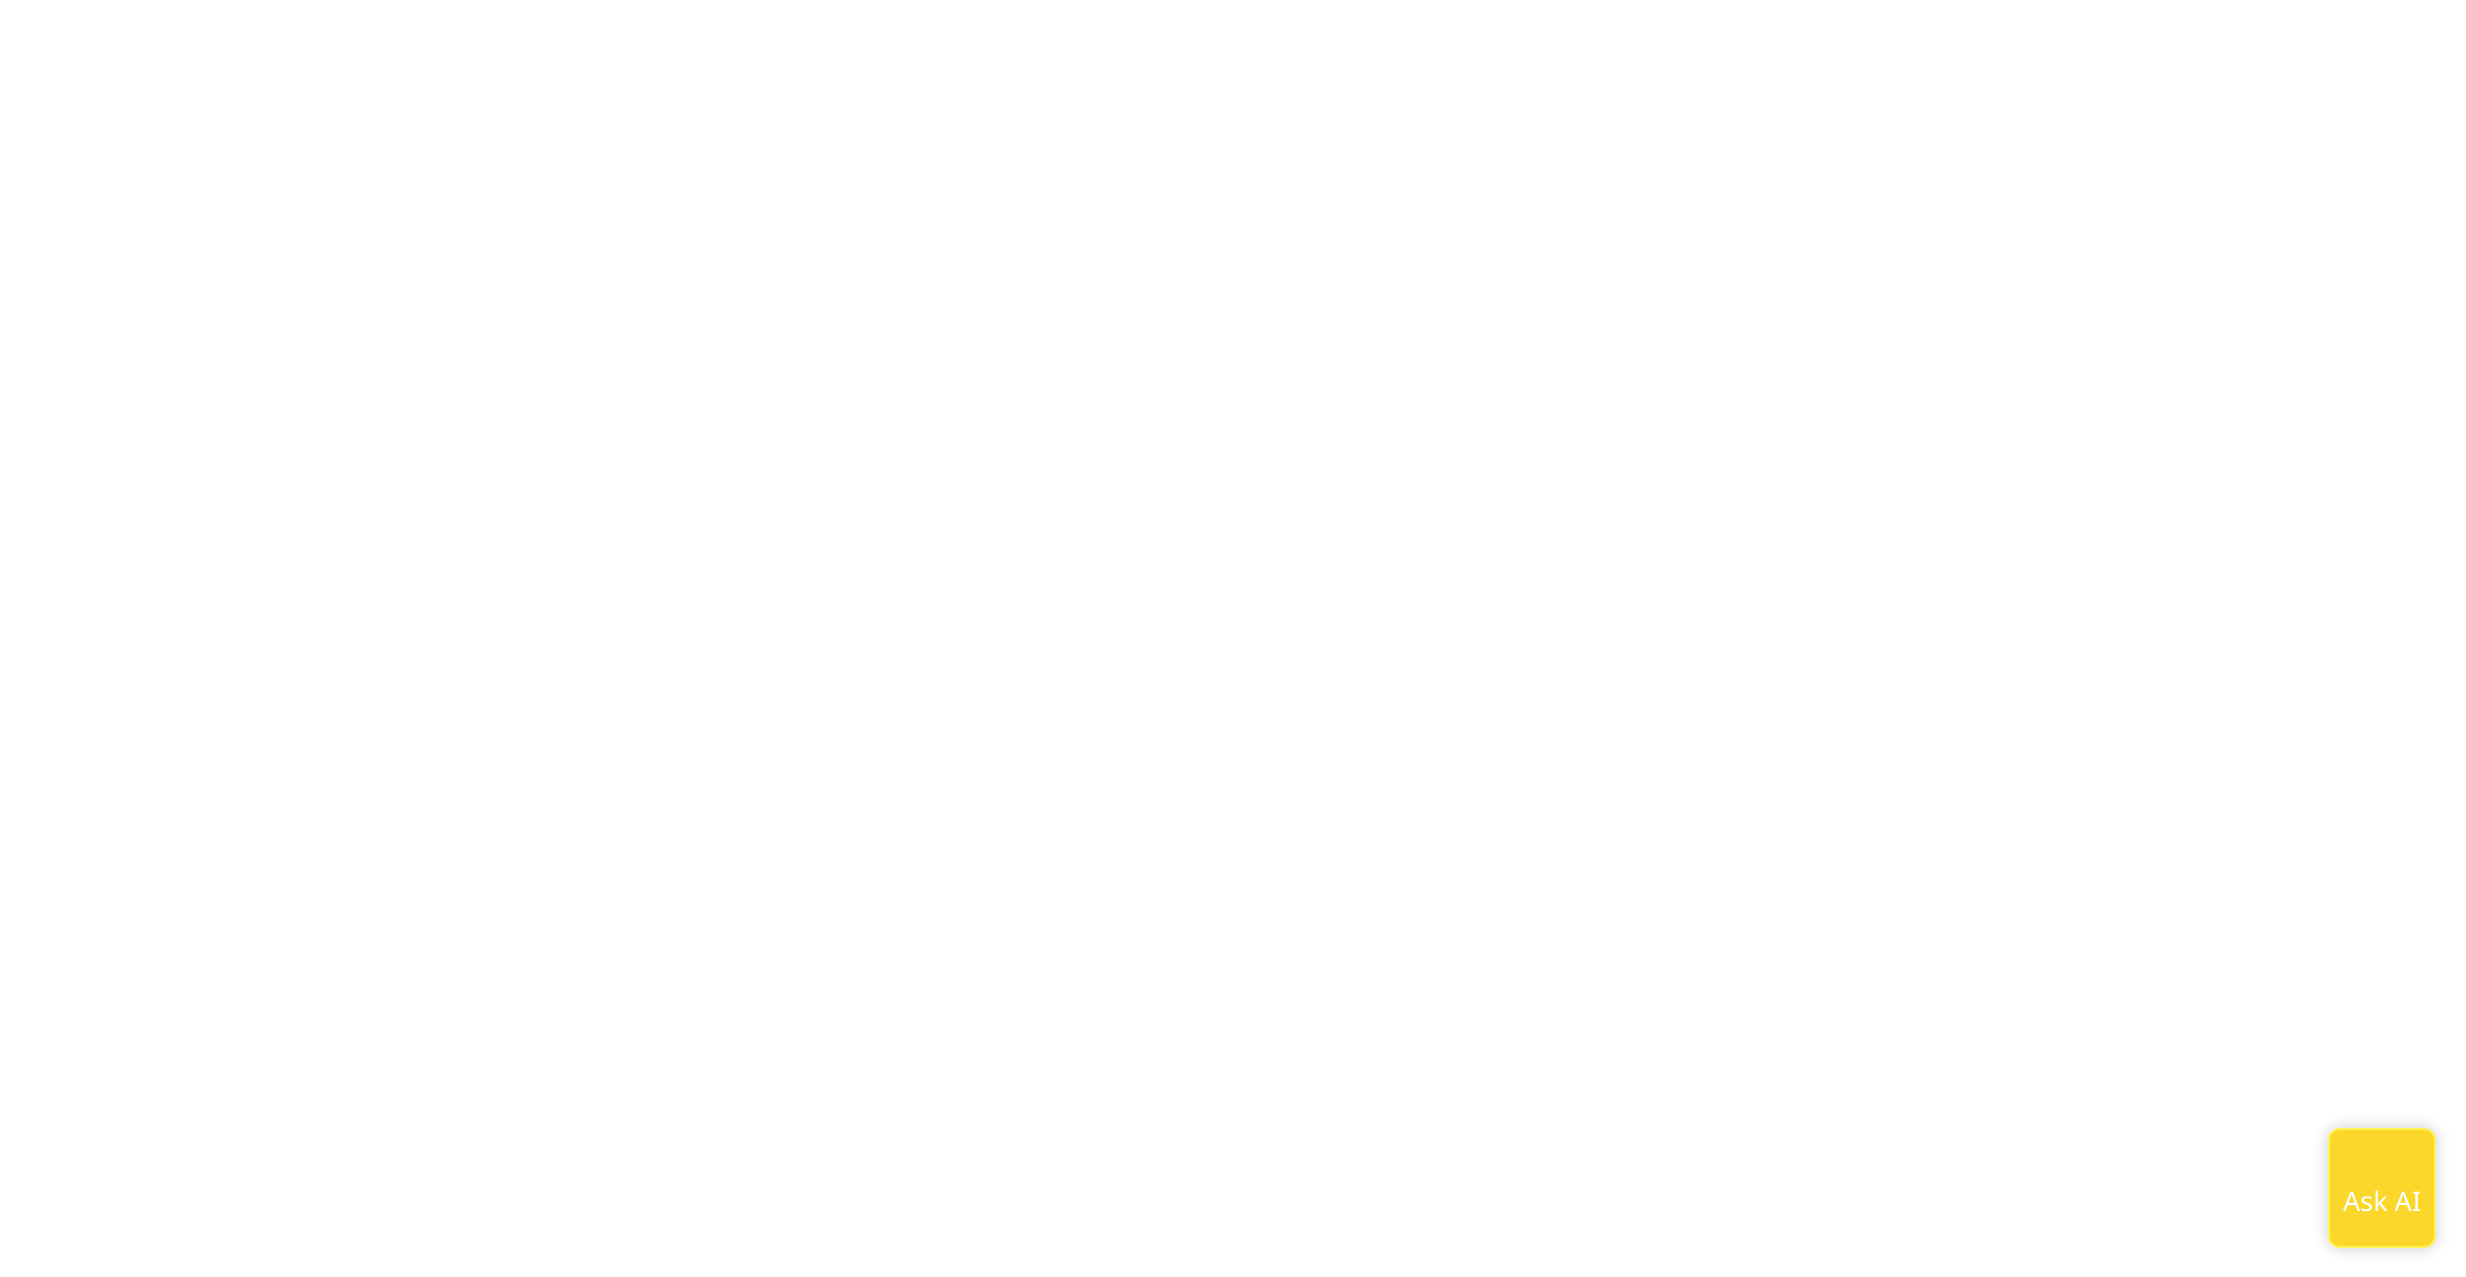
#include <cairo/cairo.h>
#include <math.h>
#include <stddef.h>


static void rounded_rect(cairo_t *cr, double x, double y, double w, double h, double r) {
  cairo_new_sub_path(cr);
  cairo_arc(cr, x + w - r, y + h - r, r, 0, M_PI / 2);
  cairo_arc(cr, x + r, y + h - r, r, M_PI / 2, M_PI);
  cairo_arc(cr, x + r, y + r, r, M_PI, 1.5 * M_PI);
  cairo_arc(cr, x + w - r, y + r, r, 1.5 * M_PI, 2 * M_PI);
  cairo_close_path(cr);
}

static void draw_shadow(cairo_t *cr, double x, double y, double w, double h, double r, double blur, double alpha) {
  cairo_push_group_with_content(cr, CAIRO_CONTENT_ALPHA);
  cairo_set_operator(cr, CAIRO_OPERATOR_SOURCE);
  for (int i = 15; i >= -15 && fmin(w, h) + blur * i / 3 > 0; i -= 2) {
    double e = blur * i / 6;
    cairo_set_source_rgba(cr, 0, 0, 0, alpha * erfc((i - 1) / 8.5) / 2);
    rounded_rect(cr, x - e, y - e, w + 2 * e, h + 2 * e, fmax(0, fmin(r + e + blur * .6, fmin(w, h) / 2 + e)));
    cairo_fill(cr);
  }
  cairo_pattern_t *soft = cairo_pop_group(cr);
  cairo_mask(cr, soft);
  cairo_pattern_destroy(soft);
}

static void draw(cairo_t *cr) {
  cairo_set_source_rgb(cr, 1, 1, 1);
  cairo_paint(cr);
  cairo_set_source_rgb(cr, 0, 0, 0);
  draw_shadow(cr, 2328, 1128, 108, 120, 12, 7.5, 0.2);
  cairo_set_source_rgb(cr, 252 / 255.0, 215 / 255.0, 43 / 255.0);
  rounded_rect(cr, 2329, 1129, 106, 118, 11);
  cairo_fill_preserve(cr);
  cairo_set_source_rgb(cr, 254 / 255.0, 244 / 255.0, 86 / 255.0);
  cairo_stroke(cr);
  cairo_select_font_face(cr, "Noto Sans", CAIRO_FONT_SLANT_NORMAL, CAIRO_FONT_WEIGHT_NORMAL);
  cairo_set_font_size(cr, 27);
  cairo_set_source_rgb(cr, 1, 1, 1);
  cairo_move_to(cr, 2343, 1211);
  cairo_show_text(cr, "Ask AI");
}

int main(void) {
  cairo_surface_t *surface = cairo_image_surface_create(CAIRO_FORMAT_RGB24, 2466, 1277);
  cairo_t *cr = cairo_create(surface);
  cairo_font_options_t *options = cairo_font_options_create();
  cairo_font_options_set_hint_metrics(options, CAIRO_HINT_METRICS_OFF);
  cairo_font_options_set_hint_style(options, CAIRO_HINT_STYLE_NONE);
  cairo_set_font_options(cr, options);
  cairo_set_miter_limit(cr, 4);
  draw(cr);
  cairo_surface_write_to_png(surface, "out.png");
  cairo_font_options_destroy(options);
  cairo_destroy(cr);
  cairo_surface_destroy(surface);
  return 0;
}
